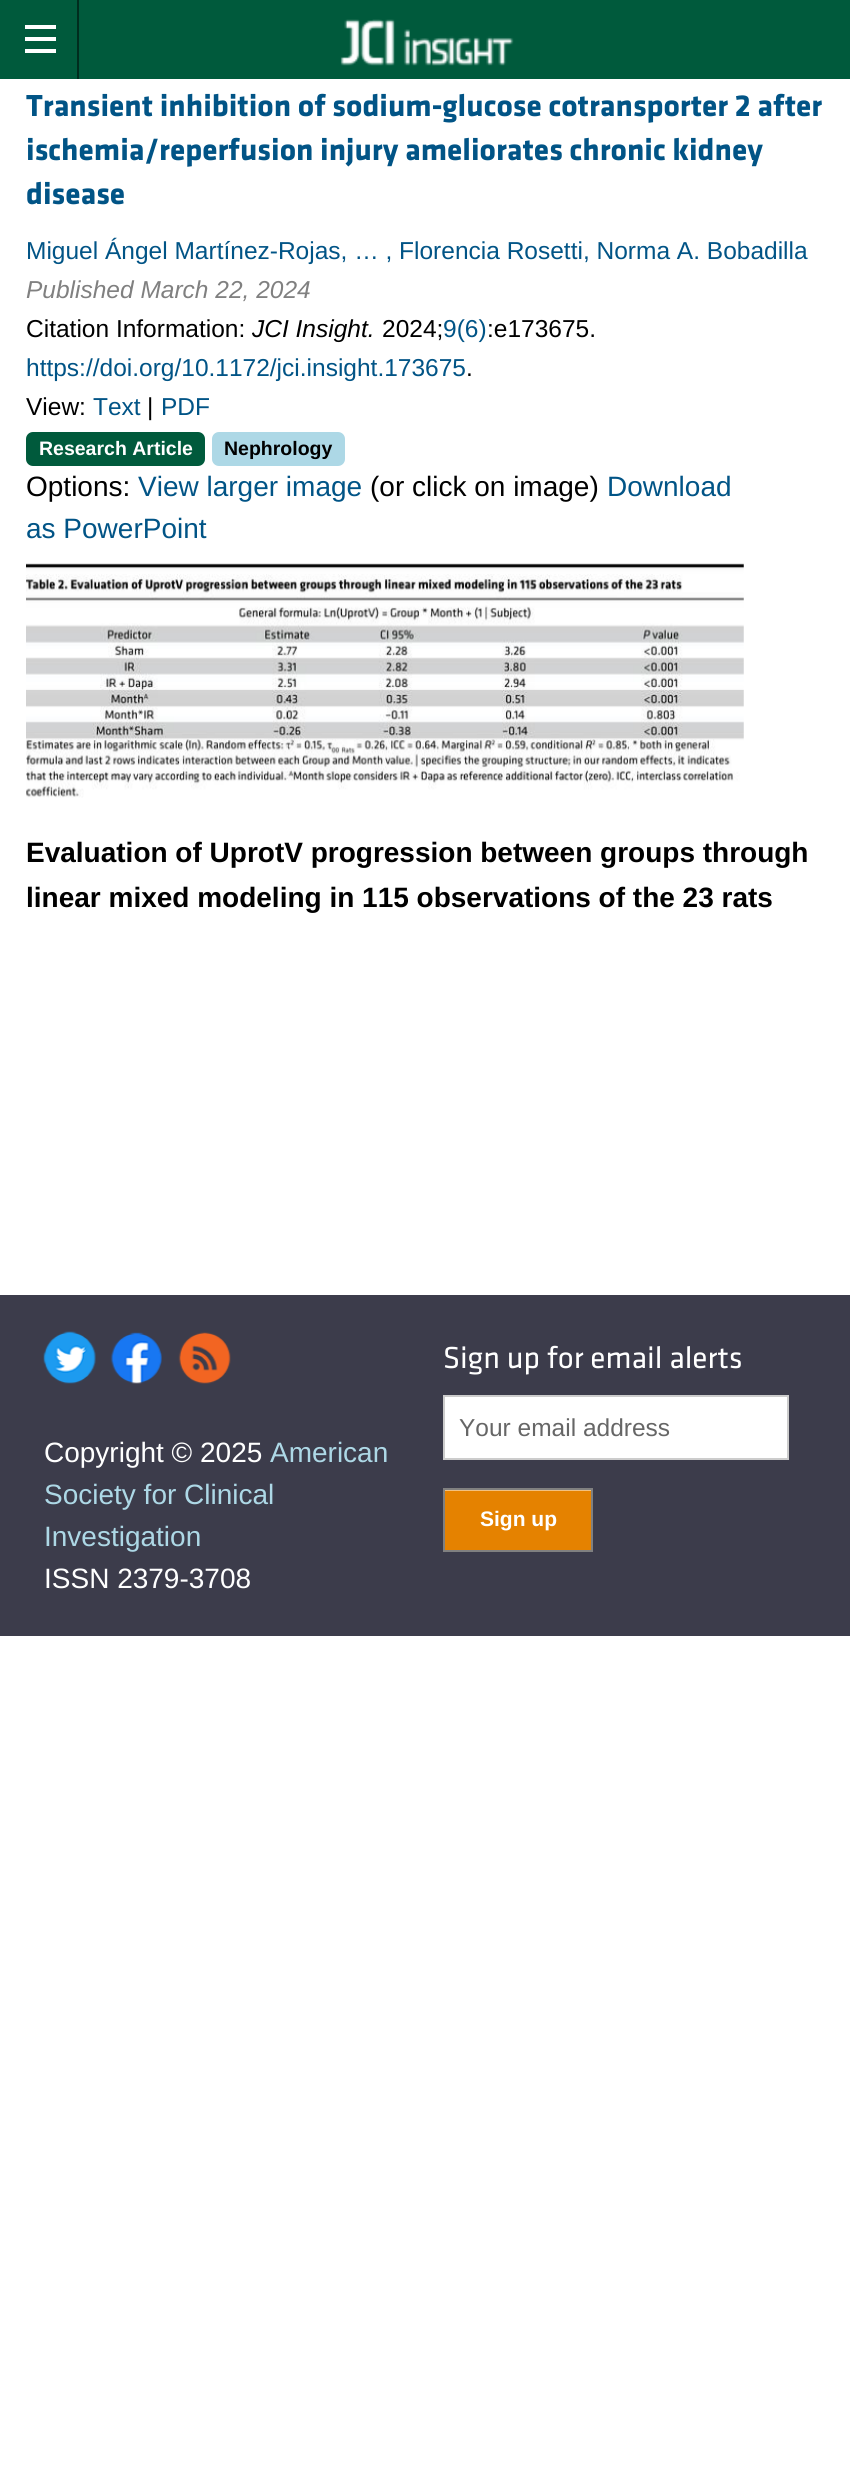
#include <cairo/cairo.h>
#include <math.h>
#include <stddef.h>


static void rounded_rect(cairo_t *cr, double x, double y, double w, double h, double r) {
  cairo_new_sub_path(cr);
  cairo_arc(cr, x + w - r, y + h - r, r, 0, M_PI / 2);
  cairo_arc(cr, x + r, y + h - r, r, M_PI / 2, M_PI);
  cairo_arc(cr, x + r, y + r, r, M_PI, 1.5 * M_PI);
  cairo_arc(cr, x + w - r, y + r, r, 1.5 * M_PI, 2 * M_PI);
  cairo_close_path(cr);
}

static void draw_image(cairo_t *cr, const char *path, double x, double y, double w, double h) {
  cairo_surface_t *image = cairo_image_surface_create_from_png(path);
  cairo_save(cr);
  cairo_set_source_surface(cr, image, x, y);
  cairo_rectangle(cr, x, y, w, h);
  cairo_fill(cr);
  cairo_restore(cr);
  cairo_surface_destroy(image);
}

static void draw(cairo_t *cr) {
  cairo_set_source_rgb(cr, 1, 1, 1);
  cairo_paint(cr);
  cairo_set_source_rgb(cr, 0, 90 / 255.0, 60 / 255.0);
  cairo_rectangle(cr, 0, 0, 850, 79);
  cairo_fill(cr);
  cairo_set_source_rgb(cr, 0, 45 / 255.0, 30 / 255.0);
  cairo_rectangle(cr, 77, 0, 2, 79);
  cairo_fill(cr);
  cairo_set_source_rgb(cr, 1, 1, 1);
  cairo_rectangle(cr, 25, 49, 31, 4);
  cairo_fill(cr);
  cairo_rectangle(cr, 25, 37, 31, 4);
  cairo_fill(cr);
  cairo_rectangle(cr, 25, 25, 31, 4);
  cairo_fill(cr);
  draw_image(cr, "images/1.png", 340, 19, 174, 47);
  cairo_set_source_rgb(cr, 0, 90 / 255.0, 60 / 255.0);
  rounded_rect(cr, 26, 432, 179, 34, 7);
  cairo_fill(cr);
  cairo_set_source_rgb(cr, 173 / 255.0, 216 / 255.0, 230 / 255.0);
  rounded_rect(cr, 212, 432, 133, 34, 7);
  cairo_fill(cr);
  draw_image(cr, "images/2.png", 26, 563, 718, 235);
  cairo_set_source_rgb(cr, 60 / 255.0, 60 / 255.0, 75 / 255.0);
  cairo_rectangle(cr, 0, 1295, 850, 341);
  cairo_fill(cr);
  draw_image(cr, "images/3.png", 43, 1331, 53, 53);
  draw_image(cr, "images/4.png", 110, 1332, 52, 52);
  draw_image(cr, "images/5.png", 178, 1332, 53, 52);
  cairo_set_source_rgb(cr, 1, 1, 1);
  cairo_rectangle(cr, 444, 1396, 344, 63);
  cairo_fill_preserve(cr);
  cairo_set_source_rgb(cr, 204 / 255.0, 204 / 255.0, 204 / 255.0);
  cairo_stroke(cr);
  cairo_set_source_rgb(cr, 229 / 255.0, 130 / 255.0, 0);
  cairo_rectangle(cr, 445, 1491, 146, 59);
  cairo_fill(cr);
  cairo_set_source_rgb(cr, 242 / 255.0, 193 / 255.0, 128 / 255.0);
  cairo_rectangle(cr, 445, 1490, 147, 1);
  cairo_fill(cr);
  cairo_rectangle(cr, 444, 1489, 148, 62);
  cairo_set_source_rgb(cr, 128 / 255.0, 128 / 255.0, 128 / 255.0);
  cairo_stroke(cr);
  cairo_select_font_face(cr, "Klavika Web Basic", CAIRO_FONT_SLANT_NORMAL, CAIRO_FONT_WEIGHT_BOLD);
  cairo_set_font_size(cr, 31.5);
  cairo_set_source_rgb(cr, 1 / 255.0, 84 / 255.0, 134 / 255.0);
  cairo_move_to(cr, 26, 116);
  cairo_show_text(cr, "Transient inhibition of sodium-glucose cotransporter 2 after");
  cairo_move_to(cr, 26, 160);
  cairo_show_text(cr, "ischemia/reperfusion injury ameliorates chronic kidney");
  cairo_move_to(cr, 26, 204);
  cairo_show_text(cr, "disease");
  cairo_select_font_face(cr, "Liberation Sans", CAIRO_FONT_SLANT_NORMAL, CAIRO_FONT_WEIGHT_NORMAL);
  cairo_set_font_size(cr, 24.5);
  cairo_move_to(cr, 26, 259);
  cairo_show_text(cr, "Miguel Ángel Martínez-Rojas, … , Florencia Rosetti, Norma A. Bobadilla");
  cairo_select_font_face(cr, "Liberation Sans", CAIRO_FONT_SLANT_ITALIC, CAIRO_FONT_WEIGHT_NORMAL);
  cairo_set_source_rgb(cr, 128 / 255.0, 128 / 255.0, 128 / 255.0);
  cairo_move_to(cr, 26, 298);
  cairo_show_text(cr, "Published March 22, 2024");
  cairo_select_font_face(cr, "Liberation Sans", CAIRO_FONT_SLANT_NORMAL, CAIRO_FONT_WEIGHT_NORMAL);
  cairo_set_source_rgb(cr, 0, 0, 0);
  cairo_move_to(cr, 26, 337);
  cairo_show_text(cr, "Citation Information:");
  cairo_select_font_face(cr, "Liberation Sans", CAIRO_FONT_SLANT_ITALIC, CAIRO_FONT_WEIGHT_NORMAL);
  cairo_move_to(cr, 252, 337);
  cairo_show_text(cr, "JCI Insight.");
  cairo_select_font_face(cr, "Liberation Sans", CAIRO_FONT_SLANT_NORMAL, CAIRO_FONT_WEIGHT_NORMAL);
  cairo_move_to(cr, 382, 337);
  cairo_show_text(cr, "2024;");
  cairo_set_source_rgb(cr, 1 / 255.0, 84 / 255.0, 134 / 255.0);
  cairo_move_to(cr, 443, 337);
  cairo_show_text(cr, "9(6)");
  cairo_set_source_rgb(cr, 0, 0, 0);
  cairo_move_to(cr, 487, 337);
  cairo_show_text(cr, ":e173675.");
  cairo_set_source_rgb(cr, 1 / 255.0, 84 / 255.0, 134 / 255.0);
  cairo_move_to(cr, 26, 376);
  cairo_show_text(cr, "https://doi.org/10.1172/jci.insight.173675");
  cairo_set_source_rgb(cr, 0, 0, 0);
  cairo_move_to(cr, 466, 376);
  cairo_show_text(cr, ".");
  cairo_move_to(cr, 26, 415);
  cairo_show_text(cr, "View:");
  cairo_set_source_rgb(cr, 1 / 255.0, 84 / 255.0, 134 / 255.0);
  cairo_move_to(cr, 93, 415);
  cairo_show_text(cr, "Text");
  cairo_set_source_rgb(cr, 0, 0, 0);
  cairo_move_to(cr, 147, 415);
  cairo_show_text(cr, "|");
  cairo_set_source_rgb(cr, 1 / 255.0, 84 / 255.0, 134 / 255.0);
  cairo_move_to(cr, 161, 415);
  cairo_show_text(cr, "PDF");
  cairo_select_font_face(cr, "Liberation Sans", CAIRO_FONT_SLANT_NORMAL, CAIRO_FONT_WEIGHT_BOLD);
  cairo_set_font_size(cr, 19.5);
  cairo_set_source_rgb(cr, 1, 1, 1);
  cairo_move_to(cr, 39, 455);
  cairo_show_text(cr, "Research Article");
  cairo_set_source_rgb(cr, 0, 0, 0);
  cairo_move_to(cr, 224, 455);
  cairo_show_text(cr, "Nephrology");
  cairo_select_font_face(cr, "Liberation Sans", CAIRO_FONT_SLANT_NORMAL, CAIRO_FONT_WEIGHT_NORMAL);
  cairo_set_font_size(cr, 28);
  cairo_move_to(cr, 26, 496);
  cairo_show_text(cr, "Options:");
  cairo_set_source_rgb(cr, 1 / 255.0, 84 / 255.0, 134 / 255.0);
  cairo_move_to(cr, 138, 496);
  cairo_show_text(cr, "View larger image");
  cairo_set_source_rgb(cr, 0, 0, 0);
  cairo_move_to(cr, 370, 496);
  cairo_show_text(cr, "(or click on image)");
  cairo_set_source_rgb(cr, 1 / 255.0, 84 / 255.0, 134 / 255.0);
  cairo_move_to(cr, 607, 496);
  cairo_show_text(cr, "Download");
  cairo_move_to(cr, 26, 538);
  cairo_show_text(cr, "as PowerPoint");
  cairo_select_font_face(cr, "Liberation Sans", CAIRO_FONT_SLANT_NORMAL, CAIRO_FONT_WEIGHT_BOLD);
  cairo_set_source_rgb(cr, 0, 0, 0);
  cairo_move_to(cr, 26, 862);
  cairo_show_text(cr, "Evaluation of UprotV progression between groups through");
  cairo_move_to(cr, 26, 907);
  cairo_show_text(cr, "linear mixed modeling in 115 observations of the 23 rats");
  cairo_select_font_face(cr, "Liberation Sans", CAIRO_FONT_SLANT_NORMAL, CAIRO_FONT_WEIGHT_NORMAL);
  cairo_set_source_rgb(cr, 1, 1, 1);
  cairo_move_to(cr, 44, 1462);
  cairo_show_text(cr, "Copyright © 2025");
  cairo_set_source_rgb(cr, 173 / 255.0, 216 / 255.0, 230 / 255.0);
  cairo_move_to(cr, 270, 1462);
  cairo_show_text(cr, "American");
  cairo_move_to(cr, 44, 1504);
  cairo_show_text(cr, "Society for Clinical");
  cairo_move_to(cr, 44, 1546);
  cairo_show_text(cr, "Investigation");
  cairo_set_source_rgb(cr, 1, 1, 1);
  cairo_move_to(cr, 44, 1588);
  cairo_show_text(cr, "ISSN 2379-3708");
  cairo_select_font_face(cr, "Klavika Web Basic", CAIRO_FONT_SLANT_NORMAL, CAIRO_FONT_WEIGHT_NORMAL);
  cairo_set_font_size(cr, 31.5);
  cairo_move_to(cr, 443, 1368);
  cairo_show_text(cr, "Sign up for email alerts");
  cairo_select_font_face(cr, "Liberation Sans", CAIRO_FONT_SLANT_NORMAL, CAIRO_FONT_WEIGHT_NORMAL);
  cairo_set_font_size(cr, 24.5);
  cairo_set_source_rgb(cr, 102 / 255.0, 102 / 255.0, 102 / 255.0);
  cairo_move_to(cr, 459, 1436);
  cairo_show_text(cr, "Your email address");
  cairo_select_font_face(cr, "Liberation Sans", CAIRO_FONT_SLANT_NORMAL, CAIRO_FONT_WEIGHT_BOLD);
  cairo_set_font_size(cr, 21);
  cairo_set_source_rgb(cr, 1, 1, 1);
  cairo_move_to(cr, 480, 1526);
  cairo_show_text(cr, "Sign up");
}

int main(void) {
  cairo_surface_t *surface = cairo_image_surface_create(CAIRO_FORMAT_RGB24, 850, 2488);
  cairo_t *cr = cairo_create(surface);
  cairo_font_options_t *options = cairo_font_options_create();
  cairo_font_options_set_hint_metrics(options, CAIRO_HINT_METRICS_OFF);
  cairo_font_options_set_hint_style(options, CAIRO_HINT_STYLE_NONE);
  cairo_set_font_options(cr, options);
  cairo_set_miter_limit(cr, 4);
  draw(cr);
  cairo_surface_write_to_png(surface, "out.png");
  cairo_font_options_destroy(options);
  cairo_destroy(cr);
  cairo_surface_destroy(surface);
  return 0;
}
